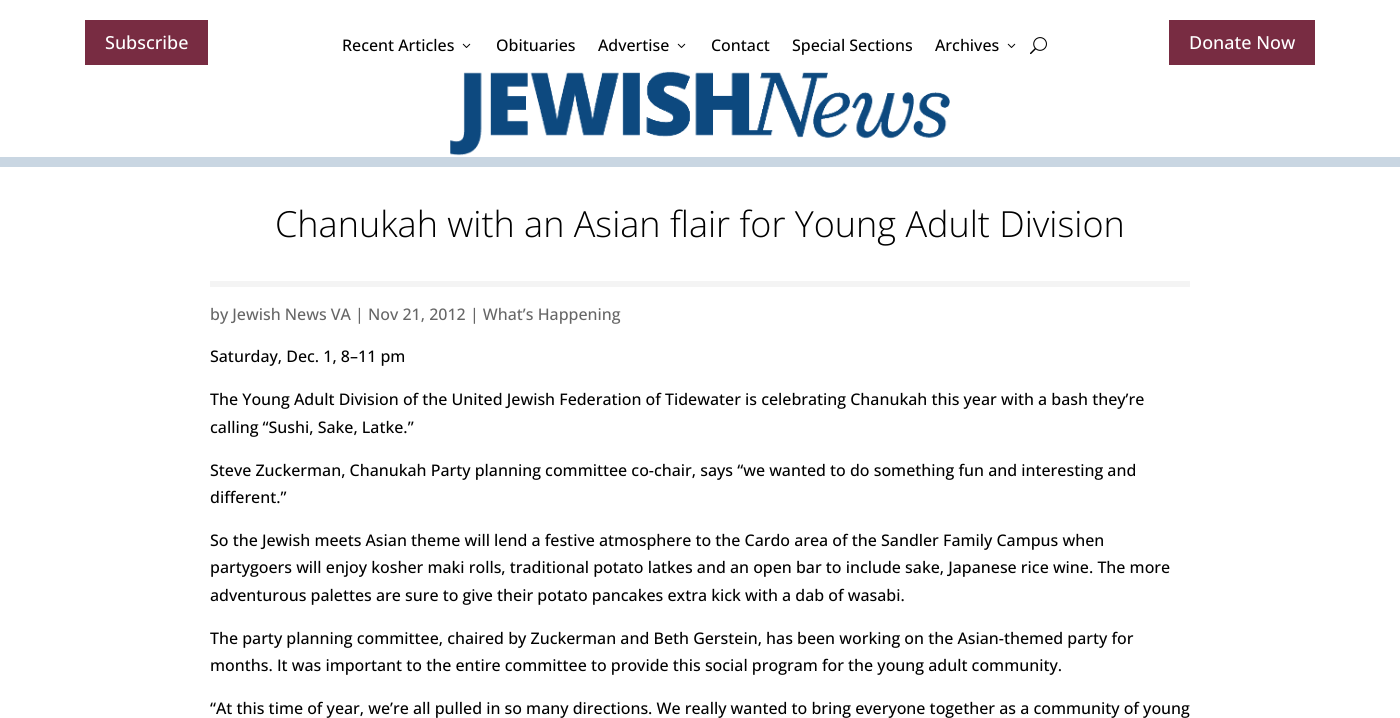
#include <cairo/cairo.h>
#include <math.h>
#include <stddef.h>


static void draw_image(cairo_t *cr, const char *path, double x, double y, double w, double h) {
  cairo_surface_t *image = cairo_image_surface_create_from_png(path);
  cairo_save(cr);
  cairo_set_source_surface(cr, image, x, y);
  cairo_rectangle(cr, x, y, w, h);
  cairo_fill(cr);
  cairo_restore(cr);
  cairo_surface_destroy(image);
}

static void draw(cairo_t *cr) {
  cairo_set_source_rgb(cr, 1, 1, 1);
  cairo_paint(cr);
  cairo_set_source_rgb(cr, 201 / 255.0, 214 / 255.0, 226 / 255.0);
  cairo_rectangle(cr, 0, 157, 1400, 10);
  cairo_fill(cr);
  cairo_set_source_rgb(cr, 120 / 255.0, 44 / 255.0, 66 / 255.0);
  cairo_rectangle(cr, 85, 20, 123, 45);
  cairo_fill(cr);
  draw_image(cr, "images/1.png", 462, 43, 9, 5);
  draw_image(cr, "images/1.png", 677, 43, 9, 5);
  draw_image(cr, "images/1.png", 1007, 43, 9, 5);
  draw_image(cr, "images/2.png", 1030, 37, 17, 18);
  cairo_rectangle(cr, 1169, 20, 146, 45);
  cairo_fill(cr);
  draw_image(cr, "images/3.png", 450, 71, 500, 85);
  cairo_set_source_rgb(cr, 244 / 255.0, 244 / 255.0, 244 / 255.0);
  cairo_rectangle(cr, 210, 281, 980, 6);
  cairo_fill(cr);
  cairo_select_font_face(cr, "Open Sans Medium", CAIRO_FONT_SLANT_NORMAL, CAIRO_FONT_WEIGHT_NORMAL);
  cairo_set_font_size(cr, 18);
  cairo_set_source_rgb(cr, 1, 1, 1);
  cairo_move_to(cr, 105, 49);
  cairo_show_text(cr, "Subscribe");
  cairo_set_font_size(cr, 16);
  cairo_set_source_rgb(cr, 0, 0, 0);
  cairo_move_to(cr, 342, 51);
  cairo_show_text(cr, "Recent Articles");
  cairo_move_to(cr, 496, 51);
  cairo_show_text(cr, "Obituaries");
  cairo_move_to(cr, 598, 51);
  cairo_show_text(cr, "Advertise");
  cairo_move_to(cr, 711, 51);
  cairo_show_text(cr, "Contact");
  cairo_move_to(cr, 792, 51);
  cairo_show_text(cr, "Special Sections");
  cairo_move_to(cr, 935, 51);
  cairo_show_text(cr, "Archives");
  cairo_set_font_size(cr, 18);
  cairo_set_source_rgb(cr, 1, 1, 1);
  cairo_move_to(cr, 1189, 49);
  cairo_show_text(cr, "Donate Now");
  cairo_select_font_face(cr, "Open Sans Light", CAIRO_FONT_SLANT_NORMAL, CAIRO_FONT_WEIGHT_NORMAL);
  cairo_set_font_size(cr, 36);
  cairo_set_source_rgb(cr, 0, 0, 0);
  cairo_move_to(cr, 275, 237);
  cairo_show_text(cr, "Chanukah with an Asian flair for Young Adult Division");
  cairo_select_font_face(cr, "Open Sans Medium", CAIRO_FONT_SLANT_NORMAL, CAIRO_FONT_WEIGHT_NORMAL);
  cairo_set_font_size(cr, 16);
  cairo_set_source_rgb(cr, 102 / 255.0, 102 / 255.0, 102 / 255.0);
  cairo_move_to(cr, 210, 320);
  cairo_show_text(cr, "by Jewish News VA | Nov 21, 2012 | What’s Happening");
  cairo_set_source_rgb(cr, 0, 0, 0);
  cairo_move_to(cr, 210, 362);
  cairo_show_text(cr, "Saturday, Dec. 1, 8–11 pm");
  cairo_move_to(cr, 210, 405);
  cairo_show_text(cr, "The Young Adult Division of the United Jewish Federation of Tidewater is celebrating Chanukah this year with a bash they’re");
  cairo_move_to(cr, 210, 433);
  cairo_show_text(cr, "calling “Sushi, Sake, Latke.”");
  cairo_move_to(cr, 210, 476);
  cairo_show_text(cr, "Steve Zuckerman, Chanukah Party planning committee co-chair, says “we wanted to do something fun and interesting and");
  cairo_move_to(cr, 210, 503);
  cairo_show_text(cr, "different.”");
  cairo_move_to(cr, 210, 546);
  cairo_show_text(cr, "So the Jewish meets Asian theme will lend a festive atmosphere to the Cardo area of the Sandler Family Campus when");
  cairo_move_to(cr, 210, 573);
  cairo_show_text(cr, "partygoers will enjoy kosher maki rolls, traditional potato latkes and an open bar to include sake, Japanese rice wine. The more");
  cairo_move_to(cr, 210, 601);
  cairo_show_text(cr, "adventurous palettes are sure to give their potato pancakes extra kick with a dab of wasabi.");
  cairo_move_to(cr, 210, 644);
  cairo_show_text(cr, "The party planning committee, chaired by Zuckerman and Beth Gerstein, has been working on the Asian-themed party for");
  cairo_move_to(cr, 210, 671);
  cairo_show_text(cr, "months. It was important to the entire committee to provide this social program for the young adult community.");
  cairo_move_to(cr, 210, 714);
  cairo_show_text(cr, "“At this time of year, we’re all pulled in so many directions. We really wanted to bring everyone together as a community of young");
}

int main(void) {
  cairo_surface_t *surface = cairo_image_surface_create(CAIRO_FORMAT_RGB24, 1400, 718);
  cairo_t *cr = cairo_create(surface);
  cairo_font_options_t *options = cairo_font_options_create();
  cairo_font_options_set_hint_metrics(options, CAIRO_HINT_METRICS_OFF);
  cairo_font_options_set_hint_style(options, CAIRO_HINT_STYLE_NONE);
  cairo_set_font_options(cr, options);
  cairo_set_miter_limit(cr, 4);
  draw(cr);
  cairo_surface_write_to_png(surface, "out.png");
  cairo_font_options_destroy(options);
  cairo_destroy(cr);
  cairo_surface_destroy(surface);
  return 0;
}
